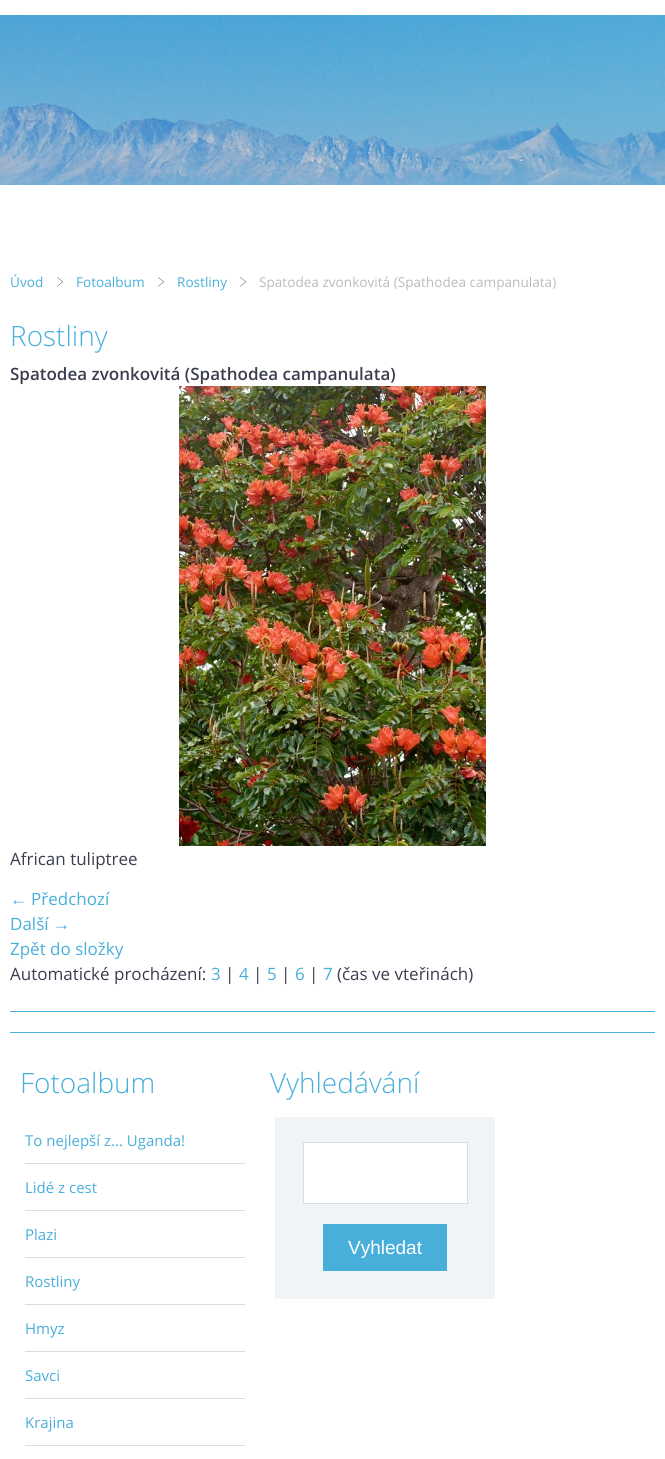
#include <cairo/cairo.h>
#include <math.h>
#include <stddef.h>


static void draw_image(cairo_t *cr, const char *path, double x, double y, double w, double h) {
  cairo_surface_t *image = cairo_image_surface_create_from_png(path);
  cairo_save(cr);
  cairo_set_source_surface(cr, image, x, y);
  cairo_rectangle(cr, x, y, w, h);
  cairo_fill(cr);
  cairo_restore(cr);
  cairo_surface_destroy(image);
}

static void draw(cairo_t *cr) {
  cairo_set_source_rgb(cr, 1, 1, 1);
  cairo_paint(cr);
  draw_image(cr, "images/1.png", 0, 15, 665, 170);
  draw_image(cr, "images/2.png", 57, 277, 6, 10);
  draw_image(cr, "images/2.png", 158, 277, 6, 10);
  draw_image(cr, "images/2.png", 240, 277, 6, 10);
  draw_image(cr, "images/3.png", 179, 386, 307, 460);
  cairo_set_source_rgb(cr, 72 / 255.0, 175 / 255.0, 219 / 255.0);
  cairo_rectangle(cr, 10, 1011, 645, 1);
  cairo_fill(cr);
  cairo_rectangle(cr, 10, 1032, 645, 1);
  cairo_fill(cr);
  cairo_set_source_rgb(cr, 214 / 255.0, 221 / 255.0, 227 / 255.0);
  cairo_rectangle(cr, 25, 1163, 220, 1);
  cairo_fill(cr);
  cairo_rectangle(cr, 25, 1210, 220, 1);
  cairo_fill(cr);
  cairo_rectangle(cr, 25, 1257, 220, 1);
  cairo_fill(cr);
  cairo_rectangle(cr, 25, 1304, 220, 1);
  cairo_fill(cr);
  cairo_rectangle(cr, 25, 1351, 220, 1);
  cairo_fill(cr);
  cairo_rectangle(cr, 25, 1398, 220, 1);
  cairo_fill(cr);
  cairo_rectangle(cr, 25, 1445, 220, 1);
  cairo_fill(cr);
  cairo_set_source_rgb(cr, 240 / 255.0, 244 / 255.0, 247 / 255.0);
  cairo_rectangle(cr, 275, 1117, 220, 182);
  cairo_fill(cr);
  cairo_set_source_rgb(cr, 1, 1, 1);
  cairo_rectangle(cr, 303.5, 1142.5, 164, 61);
  cairo_fill_preserve(cr);
  cairo_set_source_rgb(cr, 214 / 255.0, 221 / 255.0, 227 / 255.0);
  cairo_set_line_width(cr, 1);
  cairo_stroke(cr);
  cairo_set_source_rgb(cr, 72 / 255.0, 175 / 255.0, 219 / 255.0);
  cairo_rectangle(cr, 323, 1224, 124, 47);
  cairo_fill(cr);
  cairo_select_font_face(cr, "Open Sans", CAIRO_FONT_SLANT_NORMAL, CAIRO_FONT_WEIGHT_NORMAL);
  cairo_set_font_size(cr, 13.6);
  cairo_move_to(cr, 10, 287);
  cairo_show_text(cr, "Úvod");
  cairo_move_to(cr, 76, 287);
  cairo_show_text(cr, "Fotoalbum");
  cairo_move_to(cr, 177, 287);
  cairo_show_text(cr, "Rostliny");
  cairo_set_source_rgb(cr, 187 / 255.0, 187 / 255.0, 187 / 255.0);
  cairo_move_to(cr, 259, 287);
  cairo_show_text(cr, "Spatodea zvonkovitá (Spathodea campanulata)");
  cairo_select_font_face(cr, "Open Sans Light", CAIRO_FONT_SLANT_NORMAL, CAIRO_FONT_WEIGHT_NORMAL);
  cairo_set_font_size(cr, 28);
  cairo_set_source_rgb(cr, 72 / 255.0, 175 / 255.0, 219 / 255.0);
  cairo_move_to(cr, 10, 346);
  cairo_show_text(cr, "Rostliny");
  cairo_select_font_face(cr, "Open Sans SemiBold", CAIRO_FONT_SLANT_NORMAL, CAIRO_FONT_WEIGHT_NORMAL);
  cairo_set_font_size(cr, 17);
  cairo_set_source_rgb(cr, 59 / 255.0, 62 / 255.0, 79 / 255.0);
  cairo_move_to(cr, 10, 380);
  cairo_show_text(cr, "Spatodea zvonkovitá (Spathodea campanulata)");
  cairo_select_font_face(cr, "Open Sans", CAIRO_FONT_SLANT_NORMAL, CAIRO_FONT_WEIGHT_NORMAL);
  cairo_move_to(cr, 10, 865);
  cairo_show_text(cr, "African tuliptree");
  cairo_select_font_face(cr, "Liberation Serif", CAIRO_FONT_SLANT_NORMAL, CAIRO_FONT_WEIGHT_NORMAL);
  cairo_set_source_rgb(cr, 72 / 255.0, 175 / 255.0, 219 / 255.0);
  cairo_move_to(cr, 10, 905);
  cairo_show_text(cr, "←");
  cairo_select_font_face(cr, "Open Sans", CAIRO_FONT_SLANT_NORMAL, CAIRO_FONT_WEIGHT_NORMAL);
  cairo_move_to(cr, 31, 905);
  cairo_show_text(cr, "Předchozí");
  cairo_move_to(cr, 10, 930);
  cairo_show_text(cr, "Další");
  cairo_select_font_face(cr, "Liberation Serif", CAIRO_FONT_SLANT_NORMAL, CAIRO_FONT_WEIGHT_NORMAL);
  cairo_move_to(cr, 53, 930);
  cairo_show_text(cr, "→");
  cairo_select_font_face(cr, "Open Sans", CAIRO_FONT_SLANT_NORMAL, CAIRO_FONT_WEIGHT_NORMAL);
  cairo_move_to(cr, 10, 955);
  cairo_show_text(cr, "Zpět do složky");
  cairo_set_source_rgb(cr, 59 / 255.0, 62 / 255.0, 79 / 255.0);
  cairo_move_to(cr, 10, 980);
  cairo_show_text(cr, "Automatické procházení:");
  cairo_set_source_rgb(cr, 72 / 255.0, 175 / 255.0, 219 / 255.0);
  cairo_move_to(cr, 211, 980);
  cairo_show_text(cr, "3");
  cairo_set_source_rgb(cr, 59 / 255.0, 62 / 255.0, 79 / 255.0);
  cairo_move_to(cr, 225, 980);
  cairo_show_text(cr, "|");
  cairo_set_source_rgb(cr, 72 / 255.0, 175 / 255.0, 219 / 255.0);
  cairo_move_to(cr, 239, 980);
  cairo_show_text(cr, "4");
  cairo_set_source_rgb(cr, 59 / 255.0, 62 / 255.0, 79 / 255.0);
  cairo_move_to(cr, 253, 980);
  cairo_show_text(cr, "|");
  cairo_set_source_rgb(cr, 72 / 255.0, 175 / 255.0, 219 / 255.0);
  cairo_move_to(cr, 267, 980);
  cairo_show_text(cr, "5");
  cairo_set_source_rgb(cr, 59 / 255.0, 62 / 255.0, 79 / 255.0);
  cairo_move_to(cr, 281, 980);
  cairo_show_text(cr, "|");
  cairo_set_source_rgb(cr, 72 / 255.0, 175 / 255.0, 219 / 255.0);
  cairo_move_to(cr, 295, 980);
  cairo_show_text(cr, "6");
  cairo_set_source_rgb(cr, 59 / 255.0, 62 / 255.0, 79 / 255.0);
  cairo_move_to(cr, 309, 980);
  cairo_show_text(cr, "|");
  cairo_set_source_rgb(cr, 72 / 255.0, 175 / 255.0, 219 / 255.0);
  cairo_move_to(cr, 323, 980);
  cairo_show_text(cr, "7");
  cairo_set_source_rgb(cr, 59 / 255.0, 62 / 255.0, 79 / 255.0);
  cairo_move_to(cr, 337, 980);
  cairo_show_text(cr, "(čas ve vteřinách)");
  cairo_select_font_face(cr, "Open Sans Light", CAIRO_FONT_SLANT_NORMAL, CAIRO_FONT_WEIGHT_NORMAL);
  cairo_set_font_size(cr, 28);
  cairo_set_source_rgb(cr, 72 / 255.0, 175 / 255.0, 219 / 255.0);
  cairo_move_to(cr, 20, 1093);
  cairo_show_text(cr, "Fotoalbum");
  cairo_select_font_face(cr, "Open Sans", CAIRO_FONT_SLANT_NORMAL, CAIRO_FONT_WEIGHT_NORMAL);
  cairo_set_font_size(cr, 15);
  cairo_move_to(cr, 25, 1146);
  cairo_show_text(cr, "To nejlepší z... Uganda!");
  cairo_move_to(cr, 25, 1193);
  cairo_show_text(cr, "Lidé z cest");
  cairo_move_to(cr, 25, 1240);
  cairo_show_text(cr, "Plazi");
  cairo_move_to(cr, 25, 1287);
  cairo_show_text(cr, "Rostliny");
  cairo_move_to(cr, 25, 1334);
  cairo_show_text(cr, "Hmyz");
  cairo_move_to(cr, 25, 1381);
  cairo_show_text(cr, "Savci");
  cairo_move_to(cr, 25, 1428);
  cairo_show_text(cr, "Krajina");
  cairo_select_font_face(cr, "Open Sans Light", CAIRO_FONT_SLANT_NORMAL, CAIRO_FONT_WEIGHT_NORMAL);
  cairo_set_font_size(cr, 28);
  cairo_move_to(cr, 270, 1093);
  cairo_show_text(cr, "Vyhledávání");
  cairo_select_font_face(cr, "Liberation Sans", CAIRO_FONT_SLANT_NORMAL, CAIRO_FONT_WEIGHT_NORMAL);
  cairo_set_font_size(cr, 19);
  cairo_set_source_rgb(cr, 1, 1, 1);
  cairo_move_to(cr, 348, 1254);
  cairo_show_text(cr, "Vyhledat");
}

int main(void) {
  cairo_surface_t *surface = cairo_image_surface_create(CAIRO_FORMAT_RGB24, 665, 1459);
  cairo_t *cr = cairo_create(surface);
  cairo_font_options_t *options = cairo_font_options_create();
  cairo_font_options_set_hint_metrics(options, CAIRO_HINT_METRICS_OFF);
  cairo_font_options_set_hint_style(options, CAIRO_HINT_STYLE_NONE);
  cairo_set_font_options(cr, options);
  cairo_set_miter_limit(cr, 4);
  draw(cr);
  cairo_surface_write_to_png(surface, "out.png");
  cairo_font_options_destroy(options);
  cairo_destroy(cr);
  cairo_surface_destroy(surface);
  return 0;
}
